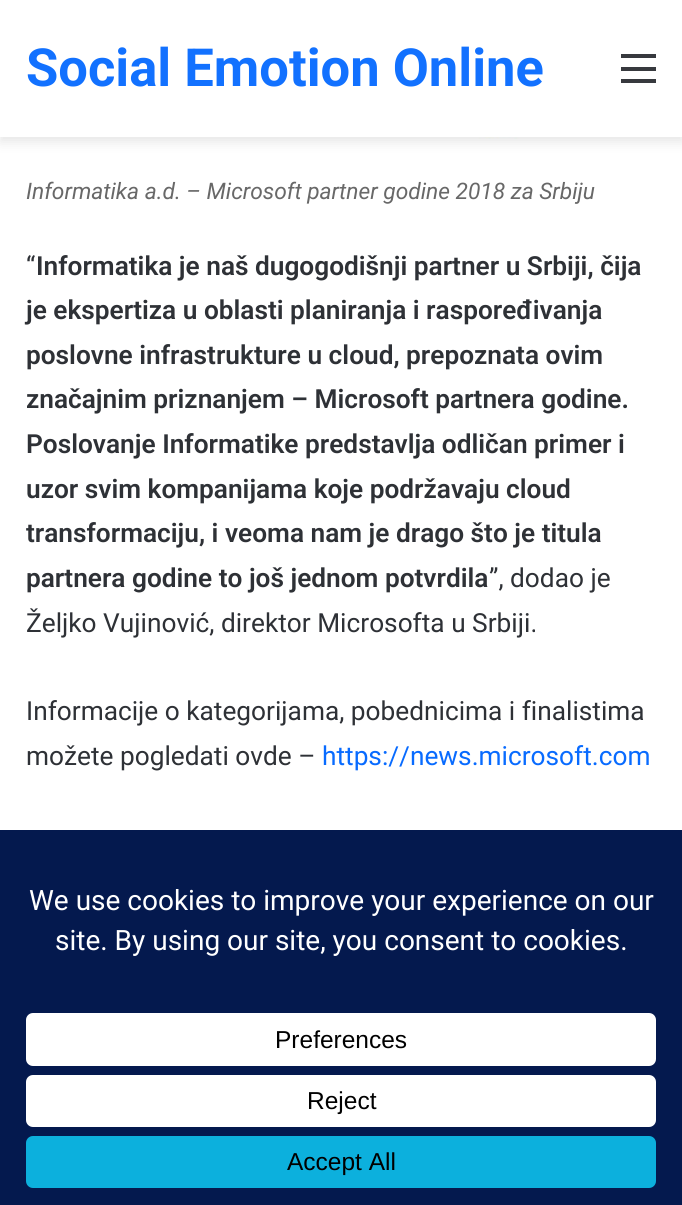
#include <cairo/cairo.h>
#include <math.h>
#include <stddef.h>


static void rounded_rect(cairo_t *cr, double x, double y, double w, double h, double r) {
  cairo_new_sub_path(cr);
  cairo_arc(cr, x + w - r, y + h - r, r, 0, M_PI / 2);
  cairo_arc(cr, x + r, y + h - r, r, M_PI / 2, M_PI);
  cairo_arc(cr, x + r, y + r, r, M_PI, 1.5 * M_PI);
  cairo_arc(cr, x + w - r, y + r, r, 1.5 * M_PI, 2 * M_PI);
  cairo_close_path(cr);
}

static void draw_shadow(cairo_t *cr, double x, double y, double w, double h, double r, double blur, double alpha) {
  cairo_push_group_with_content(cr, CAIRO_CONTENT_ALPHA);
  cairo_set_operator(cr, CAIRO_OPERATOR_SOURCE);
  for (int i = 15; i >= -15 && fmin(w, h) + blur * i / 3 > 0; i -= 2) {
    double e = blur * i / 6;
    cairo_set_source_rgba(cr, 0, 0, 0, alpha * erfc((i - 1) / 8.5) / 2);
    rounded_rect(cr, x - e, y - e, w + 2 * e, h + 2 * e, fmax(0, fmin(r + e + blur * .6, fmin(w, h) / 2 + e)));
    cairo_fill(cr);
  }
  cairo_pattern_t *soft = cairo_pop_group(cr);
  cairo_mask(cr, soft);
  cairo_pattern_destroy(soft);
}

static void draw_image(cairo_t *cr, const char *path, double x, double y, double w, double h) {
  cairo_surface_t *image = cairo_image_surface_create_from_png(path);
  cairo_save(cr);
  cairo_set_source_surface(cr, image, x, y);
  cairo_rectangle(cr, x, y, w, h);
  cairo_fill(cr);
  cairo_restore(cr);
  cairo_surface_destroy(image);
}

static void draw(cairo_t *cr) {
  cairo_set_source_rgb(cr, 1, 1, 1);
  cairo_paint(cr);
  draw_image(cr, "images/1.png", 55, 137, 577, 2);
  cairo_set_source_rgb(cr, 0, 0, 0);
  draw_shadow(cr, 0, 5, 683, 137, 0, 6, 0.1);
  cairo_set_source_rgb(cr, 1, 1, 1);
  cairo_rectangle(cr, 0, 0, 682, 137);
  cairo_fill(cr);
  cairo_set_source_rgb(cr, 55 / 255.0, 57 / 255.0, 62 / 255.0);
  cairo_rectangle(cr, 621, 67, 35, 4);
  cairo_fill(cr);
  cairo_rectangle(cr, 621, 54, 35, 4);
  cairo_fill(cr);
  cairo_rectangle(cr, 621, 79, 35, 4);
  cairo_fill(cr);
  cairo_set_source_rgb(cr, 4 / 255.0, 25 / 255.0, 78 / 255.0);
  cairo_rectangle(cr, 0, 830, 682, 375);
  cairo_fill(cr);
  cairo_set_source_rgb(cr, 1, 1, 1);
  rounded_rect(cr, 26, 1013, 630, 53, 7);
  cairo_fill(cr);
  rounded_rect(cr, 26, 1075, 630, 52, 7);
  cairo_fill(cr);
  cairo_set_source_rgb(cr, 12 / 255.0, 176 / 255.0, 221 / 255.0);
  rounded_rect(cr, 26, 1136, 630, 52, 7);
  cairo_fill(cr);
  cairo_select_font_face(cr, "Roboto", CAIRO_FONT_SLANT_NORMAL, CAIRO_FONT_WEIGHT_BOLD);
  cairo_set_font_size(cr, 52.5);
  cairo_set_source_rgb(cr, 18 / 255.0, 113 / 255.0, 1);
  cairo_move_to(cr, 26, 86);
  cairo_show_text(cr, "Social Emotion Online");
  cairo_select_font_face(cr, "Roboto", CAIRO_FONT_SLANT_ITALIC, CAIRO_FONT_WEIGHT_NORMAL);
  cairo_set_font_size(cr, 22.75);
  cairo_set_source_rgb(cr, 104 / 255.0, 104 / 255.0, 104 / 255.0);
  cairo_move_to(cr, 26, 199);
  cairo_show_text(cr, "Informatika a.d. – Microsoft partner godine 2018 za Srbiju");
  cairo_select_font_face(cr, "Roboto", CAIRO_FONT_SLANT_NORMAL, CAIRO_FONT_WEIGHT_NORMAL);
  cairo_set_font_size(cr, 26.25);
  cairo_set_source_rgb(cr, 46 / 255.0, 49 / 255.0, 54 / 255.0);
  cairo_move_to(cr, 26, 275);
  cairo_show_text(cr, "“");
  cairo_select_font_face(cr, "Roboto SemiBold", CAIRO_FONT_SLANT_NORMAL, CAIRO_FONT_WEIGHT_NORMAL);
  cairo_move_to(cr, 36, 275);
  cairo_show_text(cr, "Informatika je naš dugogodišnji partner u Srbiji, čija");
  cairo_move_to(cr, 26, 319);
  cairo_show_text(cr, "je ekspertiza u oblasti planiranja i raspoređivanja");
  cairo_move_to(cr, 26, 364);
  cairo_show_text(cr, "poslovne infrastrukture u cloud, prepoznata ovim");
  cairo_move_to(cr, 26, 408);
  cairo_show_text(cr, "značajnim priznanjem – Microsoft partnera godine.");
  cairo_move_to(cr, 26, 453);
  cairo_show_text(cr, "Poslovanje Informatike predstavlja odličan primer i");
  cairo_move_to(cr, 26, 498);
  cairo_show_text(cr, "uzor svim kompanijama koje podržavaju cloud");
  cairo_move_to(cr, 26, 542);
  cairo_show_text(cr, "transformaciju, i veoma nam je drago što je titula");
  cairo_move_to(cr, 26, 587);
  cairo_show_text(cr, "partnera godine to još jednom potvrdila");
  cairo_select_font_face(cr, "Roboto", CAIRO_FONT_SLANT_NORMAL, CAIRO_FONT_WEIGHT_NORMAL);
  cairo_move_to(cr, 489, 587);
  cairo_show_text(cr, "”, dodao je");
  cairo_move_to(cr, 26, 632);
  cairo_show_text(cr, "Željko Vujinović, direktor Microsofta u Srbiji.");
  cairo_move_to(cr, 26, 720);
  cairo_show_text(cr, "Informacije o kategorijama, pobednicima i finalistima");
  cairo_move_to(cr, 26, 765);
  cairo_show_text(cr, "možete pogledati ovde –");
  cairo_set_source_rgb(cr, 8 / 255.0, 107 / 255.0, 1);
  cairo_move_to(cr, 322, 765);
  cairo_show_text(cr, "https://news.microsoft.com");
  cairo_set_font_size(cr, 28);
  cairo_set_source_rgb(cr, 1, 1, 1);
  cairo_move_to(cr, 29, 910);
  cairo_show_text(cr, "We use cookies to improve your experience on our");
  cairo_move_to(cr, 55, 950);
  cairo_show_text(cr, "site. By using our site, you consent to cookies.");
  cairo_select_font_face(cr, "Liberation Sans", CAIRO_FONT_SLANT_NORMAL, CAIRO_FONT_WEIGHT_NORMAL);
  cairo_set_font_size(cr, 24.5);
  cairo_set_source_rgb(cr, 0, 0, 0);
  cairo_move_to(cr, 275, 1048);
  cairo_show_text(cr, "Preferences");
  cairo_move_to(cr, 307, 1109);
  cairo_show_text(cr, "Reject");
  cairo_move_to(cr, 287, 1170);
  cairo_show_text(cr, "Accept All");
}

int main(void) {
  cairo_surface_t *surface = cairo_image_surface_create(CAIRO_FORMAT_RGB24, 682, 1205);
  cairo_t *cr = cairo_create(surface);
  cairo_font_options_t *options = cairo_font_options_create();
  cairo_font_options_set_hint_metrics(options, CAIRO_HINT_METRICS_OFF);
  cairo_font_options_set_hint_style(options, CAIRO_HINT_STYLE_NONE);
  cairo_set_font_options(cr, options);
  cairo_set_miter_limit(cr, 4);
  draw(cr);
  cairo_surface_write_to_png(surface, "out.png");
  cairo_font_options_destroy(options);
  cairo_destroy(cr);
  cairo_surface_destroy(surface);
  return 0;
}
